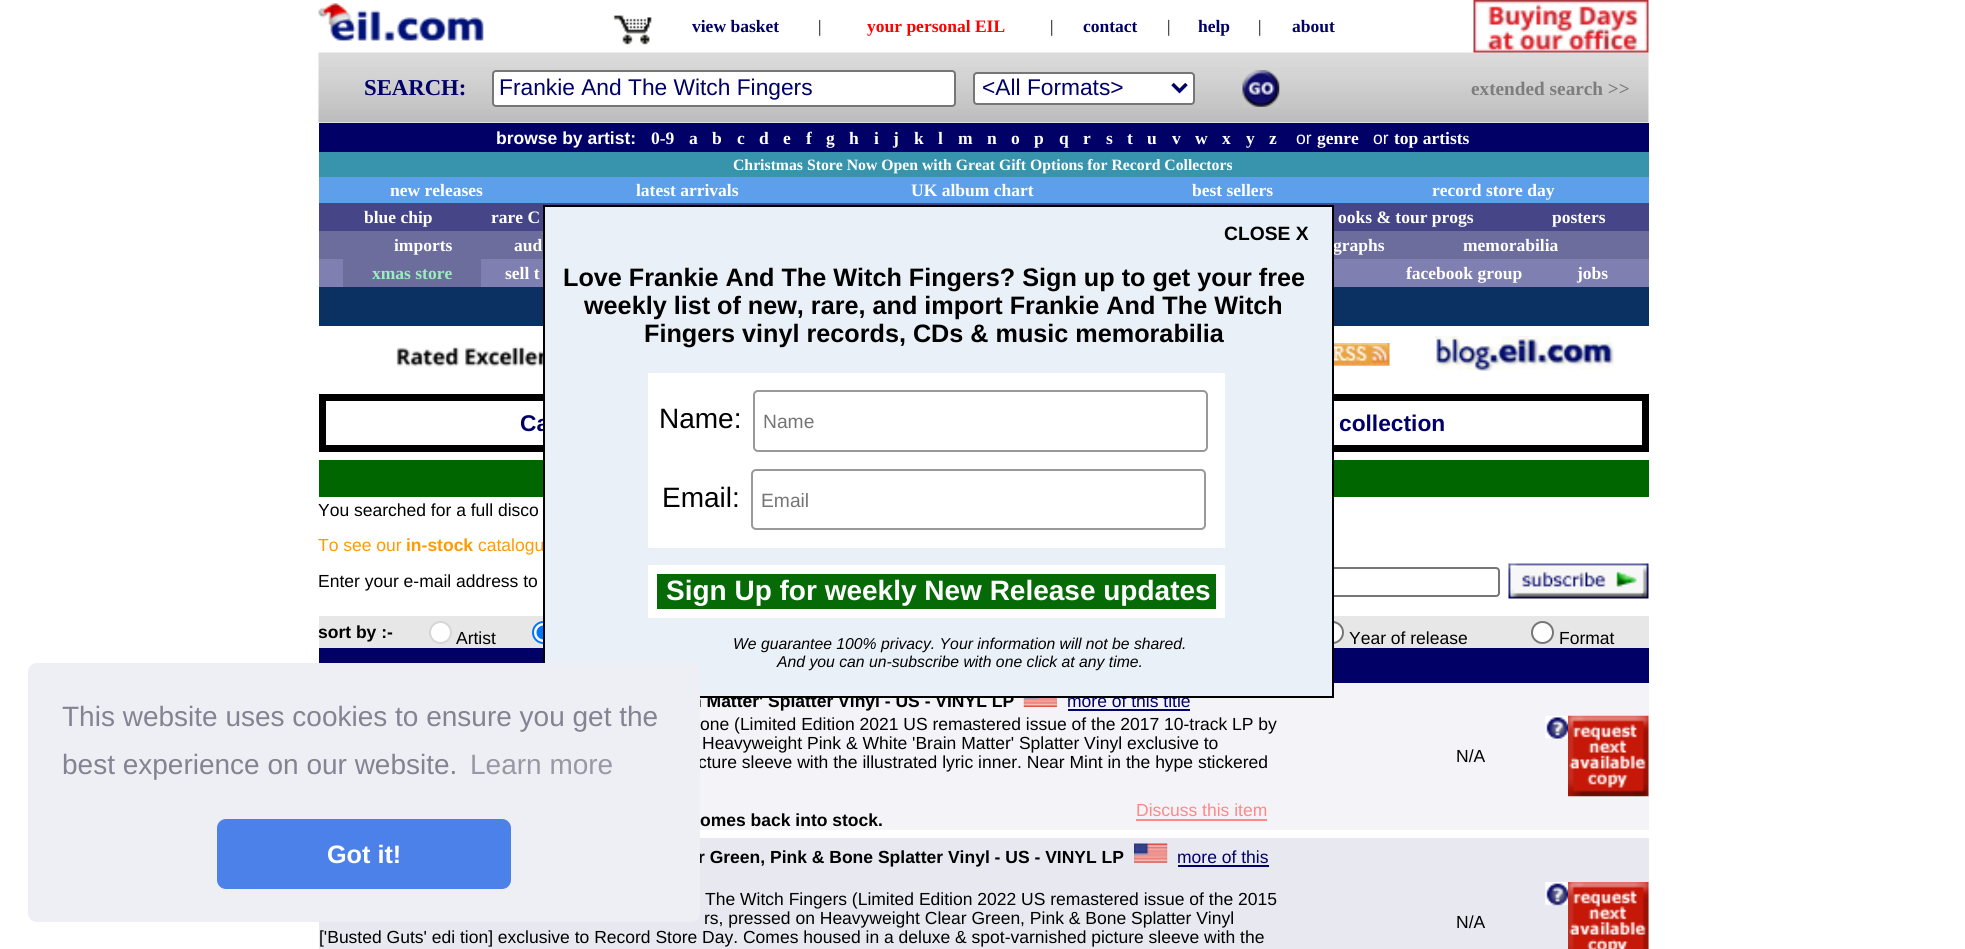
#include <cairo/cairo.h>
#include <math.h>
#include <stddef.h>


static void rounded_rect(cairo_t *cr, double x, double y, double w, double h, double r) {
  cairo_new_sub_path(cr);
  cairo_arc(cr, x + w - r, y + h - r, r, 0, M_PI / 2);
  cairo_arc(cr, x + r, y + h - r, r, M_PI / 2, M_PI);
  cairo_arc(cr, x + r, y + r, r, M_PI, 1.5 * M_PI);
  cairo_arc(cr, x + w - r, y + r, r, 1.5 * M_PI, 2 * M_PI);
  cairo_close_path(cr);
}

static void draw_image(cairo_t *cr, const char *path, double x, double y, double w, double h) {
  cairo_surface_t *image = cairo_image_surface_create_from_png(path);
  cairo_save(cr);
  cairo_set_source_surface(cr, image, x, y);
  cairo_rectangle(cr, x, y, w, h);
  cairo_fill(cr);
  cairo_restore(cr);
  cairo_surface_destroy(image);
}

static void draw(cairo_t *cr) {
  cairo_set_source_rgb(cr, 1, 1, 1);
  cairo_paint(cr);
  draw_image(cr, "images/1.png", 318, 3, 166, 38);
  draw_image(cr, "images/2.png", 613, 15, 39, 30);
  draw_image(cr, "images/4.png", 318, 52, 1331, 71);
  draw_image(cr, "images/3.png", 1473, 0, 176, 53);
  cairo_set_source_rgb(cr, 1, 1, 1);
  rounded_rect(cr, 493, 71, 462, 35, 3);
  cairo_fill_preserve(cr);
  cairo_set_source_rgb(cr, 118 / 255.0, 118 / 255.0, 118 / 255.0);
  cairo_stroke(cr);
  cairo_set_source_rgb(cr, 1, 1, 1);
  rounded_rect(cr, 974, 73, 220, 31, 3);
  cairo_fill_preserve(cr);
  cairo_set_source_rgb(cr, 118 / 255.0, 118 / 255.0, 118 / 255.0);
  cairo_stroke(cr);
  cairo_new_path(cr);
  cairo_move_to(cr, 1172.5, 84);
  cairo_line_to(cr, 1179.5, 91);
  cairo_line_to(cr, 1186.5, 84);
  cairo_set_source_rgb(cr, 0, 0, 102 / 255.0);
  cairo_set_line_width(cr, 3.5);
  cairo_stroke(cr);
  draw_image(cr, "images/5.png", 1242, 70, 38, 37);
  cairo_rectangle(cr, 319, 123, 1330, 29);
  cairo_fill(cr);
  cairo_set_source_rgb(cr, 56 / 255.0, 148 / 255.0, 173 / 255.0);
  cairo_rectangle(cr, 319, 152, 1330, 25);
  cairo_fill(cr);
  cairo_set_source_rgb(cr, 93 / 255.0, 159 / 255.0, 234 / 255.0);
  cairo_rectangle(cr, 319, 177, 1330, 26);
  cairo_fill(cr);
  cairo_set_source_rgb(cr, 69 / 255.0, 69 / 255.0, 135 / 255.0);
  cairo_rectangle(cr, 319, 203, 1330, 28);
  cairo_fill(cr);
  cairo_set_source_rgb(cr, 108 / 255.0, 108 / 255.0, 157 / 255.0);
  cairo_rectangle(cr, 319, 231, 1330, 28);
  cairo_fill(cr);
  cairo_set_source_rgb(cr, 127 / 255.0, 127 / 255.0, 177 / 255.0);
  cairo_rectangle(cr, 319, 259, 1330, 28);
  cairo_fill(cr);
  cairo_set_source_rgb(cr, 108 / 255.0, 108 / 255.0, 157 / 255.0);
  cairo_rectangle(cr, 343, 259, 138, 28);
  cairo_fill(cr);
  cairo_set_source_rgb(cr, 10 / 255.0, 49 / 255.0, 97 / 255.0);
  cairo_rectangle(cr, 319, 287, 1330, 39);
  cairo_fill(cr);
  draw_image(cr, "images/6.png", 396, 332, 147, 41);
  draw_image(cr, "images/7.png", 1334, 343, 56, 23);
  draw_image(cr, "images/8.png", 1435, 336, 179, 35);
  cairo_rectangle(cr, 322.5, 397.5, 1323, 51);
  cairo_set_source_rgb(cr, 0, 0, 0);
  cairo_set_line_width(cr, 7);
  cairo_stroke(cr);
  cairo_set_source_rgb(cr, 0, 102 / 255.0, 0);
  cairo_rectangle(cr, 319, 460, 1330, 37);
  cairo_fill(cr);
  rounded_rect(cr, 1160, 568, 339, 28, 3);
  cairo_set_source_rgb(cr, 118 / 255.0, 118 / 255.0, 118 / 255.0);
  cairo_set_line_width(cr, 2);
  cairo_stroke(cr);
  draw_image(cr, "images/9.png", 1508, 563, 141, 36);
  cairo_set_source_rgb(cr, 231 / 255.0, 231 / 255.0, 231 / 255.0);
  cairo_rectangle(cr, 319, 616, 224, 32);
  cairo_fill(cr);
  cairo_set_source_rgb(cr, 1, 1, 1);
  cairo_arc(cr, 440.5, 632.5, 11.5, 0, 2 * M_PI);
  cairo_fill(cr);
  cairo_arc(cr, 440.5, 632.5, 10.5, 0, 2 * M_PI);
  cairo_set_source_rgba(cr, 118 / 255.0, 118 / 255.0, 118 / 255.0, 0.3);
  cairo_stroke(cr);
  cairo_set_source_rgb(cr, 1, 1, 1);
  cairo_arc(cr, 543.5, 632.5, 10.5, 0, 2 * M_PI);
  cairo_fill_preserve(cr);
  cairo_set_source_rgb(cr, 0, 117 / 255.0, 1);
  cairo_stroke(cr);
  cairo_arc(cr, 543.5, 632.5, 7, 0, 2 * M_PI);
  cairo_fill(cr);
  cairo_set_source_rgb(cr, 231 / 255.0, 231 / 255.0, 231 / 255.0);
  cairo_rectangle(cr, 1334, 616, 315, 32);
  cairo_fill(cr);
  cairo_set_source_rgb(cr, 1, 1, 1);
  cairo_arc(cr, 1332.5, 632.5, 10.5, 0, 2 * M_PI);
  cairo_fill_preserve(cr);
  cairo_set_source_rgb(cr, 118 / 255.0, 118 / 255.0, 118 / 255.0);
  cairo_stroke(cr);
  cairo_set_source_rgb(cr, 1, 1, 1);
  cairo_arc(cr, 1542.5, 632.5, 10.5, 0, 2 * M_PI);
  cairo_fill_preserve(cr);
  cairo_set_source_rgb(cr, 118 / 255.0, 118 / 255.0, 118 / 255.0);
  cairo_stroke(cr);
  cairo_set_source_rgb(cr, 0, 0, 102 / 255.0);
  cairo_rectangle(cr, 319, 648, 1330, 35);
  cairo_fill(cr);
  cairo_set_source_rgb(cr, 243 / 255.0, 243 / 255.0, 248 / 255.0);
  cairo_rectangle(cr, 700, 683, 949, 147);
  cairo_fill(cr);
  draw_image(cr, "images/10.png", 1023, 698, 34, 9);
  cairo_set_source_rgb(cr, 0, 0, 102 / 255.0);
  cairo_rectangle(cr, 1068, 709, 122, 2);
  cairo_fill(cr);
  cairo_set_source_rgb(cr, 1, 136 / 255.0, 136 / 255.0);
  cairo_rectangle(cr, 1136, 819, 131, 2);
  cairo_fill(cr);
  draw_image(cr, "images/11.png", 1545, 716, 23, 23);
  draw_image(cr, "images/12.png", 1568, 715, 81, 82);
  cairo_set_source_rgb(cr, 232 / 255.0, 232 / 255.0, 240 / 255.0);
  cairo_rectangle(cr, 319, 838, 1330, 111);
  cairo_fill(cr);
  draw_image(cr, "images/13.png", 1134, 843, 34, 20);
  cairo_set_source_rgb(cr, 0, 0, 102 / 255.0);
  cairo_rectangle(cr, 1178, 865, 91, 2);
  cairo_fill(cr);
  draw_image(cr, "images/14.png", 1545, 882, 23, 24);
  draw_image(cr, "images/15.png", 1568, 882, 81, 67);
  cairo_select_font_face(cr, "Liberation Serif", CAIRO_FONT_SLANT_NORMAL, CAIRO_FONT_WEIGHT_BOLD);
  cairo_set_font_size(cr, 17.5);
  cairo_move_to(cr, 692, 32);
  cairo_show_text(cr, "view basket");
  cairo_select_font_face(cr, "Liberation Serif", CAIRO_FONT_SLANT_NORMAL, CAIRO_FONT_WEIGHT_NORMAL);
  cairo_set_source_rgb(cr, 0, 0, 0);
  cairo_move_to(cr, 818, 32);
  cairo_show_text(cr, "|");
  cairo_select_font_face(cr, "Liberation Serif", CAIRO_FONT_SLANT_NORMAL, CAIRO_FONT_WEIGHT_BOLD);
  cairo_set_source_rgb(cr, 1, 0, 0);
  cairo_move_to(cr, 867, 32);
  cairo_show_text(cr, "your personal EIL");
  cairo_select_font_face(cr, "Liberation Serif", CAIRO_FONT_SLANT_NORMAL, CAIRO_FONT_WEIGHT_NORMAL);
  cairo_set_source_rgb(cr, 0, 0, 0);
  cairo_move_to(cr, 1050, 32);
  cairo_show_text(cr, "|");
  cairo_select_font_face(cr, "Liberation Serif", CAIRO_FONT_SLANT_NORMAL, CAIRO_FONT_WEIGHT_BOLD);
  cairo_set_source_rgb(cr, 0, 0, 102 / 255.0);
  cairo_move_to(cr, 1083, 32);
  cairo_show_text(cr, "contact");
  cairo_select_font_face(cr, "Liberation Serif", CAIRO_FONT_SLANT_NORMAL, CAIRO_FONT_WEIGHT_NORMAL);
  cairo_set_source_rgb(cr, 0, 0, 0);
  cairo_move_to(cr, 1167, 32);
  cairo_show_text(cr, "|");
  cairo_select_font_face(cr, "Liberation Serif", CAIRO_FONT_SLANT_NORMAL, CAIRO_FONT_WEIGHT_BOLD);
  cairo_set_source_rgb(cr, 0, 0, 102 / 255.0);
  cairo_move_to(cr, 1198, 32);
  cairo_show_text(cr, "help");
  cairo_select_font_face(cr, "Liberation Serif", CAIRO_FONT_SLANT_NORMAL, CAIRO_FONT_WEIGHT_NORMAL);
  cairo_set_source_rgb(cr, 0, 0, 0);
  cairo_move_to(cr, 1258, 32);
  cairo_show_text(cr, "|");
  cairo_select_font_face(cr, "Liberation Serif", CAIRO_FONT_SLANT_NORMAL, CAIRO_FONT_WEIGHT_BOLD);
  cairo_set_source_rgb(cr, 0, 0, 102 / 255.0);
  cairo_move_to(cr, 1292, 32);
  cairo_show_text(cr, "about");
  cairo_set_font_size(cr, 22.75);
  cairo_move_to(cr, 364, 95);
  cairo_show_text(cr, "SEARCH:");
  cairo_select_font_face(cr, "Liberation Sans", CAIRO_FONT_SLANT_NORMAL, CAIRO_FONT_WEIGHT_NORMAL);
  cairo_move_to(cr, 499, 95);
  cairo_show_text(cr, "Frankie And The Witch Fingers");
  cairo_move_to(cr, 982, 95);
  cairo_show_text(cr, "<All Formats>");
  cairo_select_font_face(cr, "Liberation Serif", CAIRO_FONT_SLANT_NORMAL, CAIRO_FONT_WEIGHT_BOLD);
  cairo_set_font_size(cr, 19.25);
  cairo_set_source_rgb(cr, 125 / 255.0, 125 / 255.0, 125 / 255.0);
  cairo_move_to(cr, 1471, 95);
  cairo_show_text(cr, "extended search >>");
  cairo_select_font_face(cr, "Liberation Sans", CAIRO_FONT_SLANT_NORMAL, CAIRO_FONT_WEIGHT_BOLD);
  cairo_set_font_size(cr, 17.5);
  cairo_set_source_rgb(cr, 1, 1, 1);
  cairo_move_to(cr, 496, 144);
  cairo_show_text(cr, "browse by artist:");
  cairo_select_font_face(cr, "Liberation Serif", CAIRO_FONT_SLANT_NORMAL, CAIRO_FONT_WEIGHT_BOLD);
  cairo_move_to(cr, 651, 144);
  cairo_show_text(cr, "0-9");
  cairo_move_to(cr, 689, 144);
  cairo_show_text(cr, "a");
  cairo_move_to(cr, 712, 144);
  cairo_show_text(cr, "b");
  cairo_move_to(cr, 737, 144);
  cairo_show_text(cr, "c");
  cairo_move_to(cr, 759, 144);
  cairo_show_text(cr, "d");
  cairo_move_to(cr, 783, 144);
  cairo_show_text(cr, "e");
  cairo_move_to(cr, 806, 144);
  cairo_show_text(cr, "f");
  cairo_move_to(cr, 826, 144);
  cairo_show_text(cr, "g");
  cairo_move_to(cr, 849, 144);
  cairo_show_text(cr, "h");
  cairo_move_to(cr, 874, 144);
  cairo_show_text(cr, "i");
  cairo_move_to(cr, 893, 144);
  cairo_show_text(cr, "j");
  cairo_move_to(cr, 914, 144);
  cairo_show_text(cr, "k");
  cairo_move_to(cr, 938, 144);
  cairo_show_text(cr, "l");
  cairo_move_to(cr, 958, 144);
  cairo_show_text(cr, "m");
  cairo_move_to(cr, 987, 144);
  cairo_show_text(cr, "n");
  cairo_move_to(cr, 1011, 144);
  cairo_show_text(cr, "o");
  cairo_move_to(cr, 1034, 144);
  cairo_show_text(cr, "p");
  cairo_move_to(cr, 1059, 144);
  cairo_show_text(cr, "q");
  cairo_move_to(cr, 1083, 144);
  cairo_show_text(cr, "r");
  cairo_move_to(cr, 1106, 144);
  cairo_show_text(cr, "s");
  cairo_move_to(cr, 1127, 144);
  cairo_show_text(cr, "t");
  cairo_move_to(cr, 1147, 144);
  cairo_show_text(cr, "u");
  cairo_move_to(cr, 1172, 144);
  cairo_show_text(cr, "v");
  cairo_move_to(cr, 1195, 144);
  cairo_show_text(cr, "w");
  cairo_move_to(cr, 1222, 144);
  cairo_show_text(cr, "x");
  cairo_move_to(cr, 1246, 144);
  cairo_show_text(cr, "y");
  cairo_move_to(cr, 1269, 144);
  cairo_show_text(cr, "z");
  cairo_select_font_face(cr, "Liberation Sans", CAIRO_FONT_SLANT_NORMAL, CAIRO_FONT_WEIGHT_NORMAL);
  cairo_move_to(cr, 1296, 144);
  cairo_show_text(cr, "or");
  cairo_select_font_face(cr, "Liberation Serif", CAIRO_FONT_SLANT_NORMAL, CAIRO_FONT_WEIGHT_BOLD);
  cairo_move_to(cr, 1317, 144);
  cairo_show_text(cr, "genre");
  cairo_select_font_face(cr, "Liberation Sans", CAIRO_FONT_SLANT_NORMAL, CAIRO_FONT_WEIGHT_NORMAL);
  cairo_move_to(cr, 1373, 144);
  cairo_show_text(cr, "or");
  cairo_select_font_face(cr, "Liberation Serif", CAIRO_FONT_SLANT_NORMAL, CAIRO_FONT_WEIGHT_BOLD);
  cairo_move_to(cr, 1394, 144);
  cairo_show_text(cr, "top artists");
  cairo_set_font_size(cr, 15.75);
  cairo_move_to(cr, 733, 170);
  cairo_show_text(cr, "Christmas Store Now Open with Great Gift Options for Record Collectors");
  cairo_set_font_size(cr, 17.5);
  cairo_move_to(cr, 390, 196);
  cairo_show_text(cr, "new releases");
  cairo_move_to(cr, 636, 196);
  cairo_show_text(cr, "latest arrivals");
  cairo_move_to(cr, 911, 196);
  cairo_show_text(cr, "UK album chart");
  cairo_move_to(cr, 1192, 196);
  cairo_show_text(cr, "best sellers");
  cairo_move_to(cr, 1432, 196);
  cairo_show_text(cr, "record store day");
  cairo_move_to(cr, 364, 223);
  cairo_show_text(cr, "blue chip");
  cairo_move_to(cr, 491, 223);
  cairo_show_text(cr, "rare C");
  cairo_move_to(cr, 1338, 223);
  cairo_show_text(cr, "ooks & tour progs");
  cairo_move_to(cr, 1552, 223);
  cairo_show_text(cr, "posters");
  cairo_move_to(cr, 394, 251);
  cairo_show_text(cr, "imports");
  cairo_move_to(cr, 514, 251);
  cairo_show_text(cr, "aud");
  cairo_move_to(cr, 1333, 251);
  cairo_show_text(cr, "graphs");
  cairo_move_to(cr, 1463, 251);
  cairo_show_text(cr, "memorabilia");
  cairo_set_source_rgb(cr, 153 / 255.0, 238 / 255.0, 187 / 255.0);
  cairo_move_to(cr, 372, 279);
  cairo_show_text(cr, "xmas store");
  cairo_set_source_rgb(cr, 1, 1, 1);
  cairo_move_to(cr, 505, 279);
  cairo_show_text(cr, "sell t");
  cairo_move_to(cr, 1406, 279);
  cairo_show_text(cr, "facebook group");
  cairo_move_to(cr, 1577, 279);
  cairo_show_text(cr, "jobs");
  cairo_select_font_face(cr, "Liberation Sans", CAIRO_FONT_SLANT_NORMAL, CAIRO_FONT_WEIGHT_BOLD);
  cairo_set_font_size(cr, 22.75);
  cairo_set_source_rgb(cr, 0, 0, 102 / 255.0);
  cairo_move_to(cr, 520, 431);
  cairo_show_text(cr, "Ca");
  cairo_move_to(cr, 1339, 431);
  cairo_show_text(cr, "collection");
  cairo_select_font_face(cr, "Liberation Sans", CAIRO_FONT_SLANT_NORMAL, CAIRO_FONT_WEIGHT_NORMAL);
  cairo_set_font_size(cr, 17.5);
  cairo_set_source_rgb(cr, 0, 0, 0);
  cairo_move_to(cr, 318, 516);
  cairo_show_text(cr, "You searched for a full disco");
  cairo_set_source_rgb(cr, 1, 154 / 255.0, 0);
  cairo_move_to(cr, 318, 551);
  cairo_show_text(cr, "To see our");
  cairo_select_font_face(cr, "Liberation Sans", CAIRO_FONT_SLANT_NORMAL, CAIRO_FONT_WEIGHT_BOLD);
  cairo_move_to(cr, 406, 551);
  cairo_show_text(cr, "in-stock");
  cairo_select_font_face(cr, "Liberation Sans", CAIRO_FONT_SLANT_NORMAL, CAIRO_FONT_WEIGHT_NORMAL);
  cairo_move_to(cr, 478, 551);
  cairo_show_text(cr, "catalogu");
  cairo_set_source_rgb(cr, 0, 0, 0);
  cairo_move_to(cr, 318, 587);
  cairo_show_text(cr, "Enter your e-mail address to");
  cairo_select_font_face(cr, "Liberation Sans", CAIRO_FONT_SLANT_NORMAL, CAIRO_FONT_WEIGHT_BOLD);
  cairo_move_to(cr, 318, 638);
  cairo_show_text(cr, "sort by :-");
  cairo_select_font_face(cr, "Liberation Sans", CAIRO_FONT_SLANT_NORMAL, CAIRO_FONT_WEIGHT_NORMAL);
  cairo_move_to(cr, 456, 644);
  cairo_show_text(cr, "Artist");
  cairo_move_to(cr, 1349, 644);
  cairo_show_text(cr, "Year of release");
  cairo_move_to(cr, 1559, 644);
  cairo_show_text(cr, "Format");
  cairo_select_font_face(cr, "Liberation Sans", CAIRO_FONT_SLANT_NORMAL, CAIRO_FONT_WEIGHT_BOLD);
  cairo_move_to(cr, 691, 707);
  cairo_show_text(cr, "n Matter' Splatter Vinyl - US - VINYL LP");
  cairo_select_font_face(cr, "Liberation Sans", CAIRO_FONT_SLANT_NORMAL, CAIRO_FONT_WEIGHT_NORMAL);
  cairo_set_source_rgb(cr, 0, 0, 102 / 255.0);
  cairo_move_to(cr, 1067, 707);
  cairo_show_text(cr, "more of this title");
  cairo_set_source_rgb(cr, 234 / 255.0, 240 / 255.0, 247 / 255.0);
  cairo_rectangle(cr, 544, 206, 789, 491);
  cairo_fill_preserve(cr);
  cairo_set_source_rgb(cr, 0, 0, 0);
  cairo_stroke(cr);
  cairo_set_source_rgb(cr, 6 / 255.0, 106 / 255.0, 7 / 255.0);
  cairo_rectangle(cr, 652.5, 569.5, 568, 44);
  cairo_fill_preserve(cr);
  cairo_set_source_rgb(cr, 1, 1, 1);
  cairo_set_line_width(cr, 9);
  cairo_stroke(cr);
  cairo_select_font_face(cr, "Liberation Sans", CAIRO_FONT_SLANT_NORMAL, CAIRO_FONT_WEIGHT_BOLD);
  cairo_set_font_size(cr, 28);
  cairo_move_to(cr, 666, 600);
  cairo_show_text(cr, "Sign Up for weekly New Release updates");
  cairo_set_font_size(cr, 25.2);
  cairo_set_source_rgb(cr, 0, 0, 0);
  cairo_move_to(cr, 644, 342);
  cairo_show_text(cr, "Fingers vinyl records, CDs & music memorabilia");
  cairo_move_to(cr, 584, 314);
  cairo_show_text(cr, "weekly list of new, rare, and import Frankie And The Witch");
  cairo_move_to(cr, 563, 286);
  cairo_show_text(cr, "Love Frankie And The Witch Fingers? Sign up to get your free");
  cairo_select_font_face(cr, "Liberation Sans", CAIRO_FONT_SLANT_ITALIC, CAIRO_FONT_WEIGHT_NORMAL);
  cairo_set_font_size(cr, 15.75);
  cairo_move_to(cr, 777, 667);
  cairo_show_text(cr, "And you can un-subscribe with one click at any time.");
  cairo_move_to(cr, 733, 649);
  cairo_show_text(cr, "We guarantee 100% privacy. Your information will not be shared.");
  cairo_set_source_rgb(cr, 1, 1, 1);
  cairo_rectangle(cr, 648, 373, 577, 175);
  cairo_fill(cr);
  rounded_rect(cr, 752, 470, 453, 59, 4);
  cairo_set_source_rgb(cr, 153 / 255.0, 153 / 255.0, 153 / 255.0);
  cairo_set_line_width(cr, 2);
  cairo_stroke(cr);
  cairo_select_font_face(cr, "Liberation Sans", CAIRO_FONT_SLANT_NORMAL, CAIRO_FONT_WEIGHT_NORMAL);
  cairo_set_font_size(cr, 19.25);
  cairo_set_source_rgb(cr, 117 / 255.0, 117 / 255.0, 117 / 255.0);
  cairo_move_to(cr, 761, 507);
  cairo_show_text(cr, "Email");
  cairo_set_font_size(cr, 28);
  cairo_set_source_rgb(cr, 0, 0, 0);
  cairo_move_to(cr, 662, 507);
  cairo_show_text(cr, "Email:");
  rounded_rect(cr, 754, 391, 453, 60, 4);
  cairo_set_source_rgb(cr, 153 / 255.0, 153 / 255.0, 153 / 255.0);
  cairo_stroke(cr);
  cairo_set_font_size(cr, 19.25);
  cairo_set_source_rgb(cr, 117 / 255.0, 117 / 255.0, 117 / 255.0);
  cairo_move_to(cr, 763, 428);
  cairo_show_text(cr, "Name");
  cairo_set_font_size(cr, 28);
  cairo_set_source_rgb(cr, 0, 0, 0);
  cairo_move_to(cr, 659, 428);
  cairo_show_text(cr, "Name:");
  cairo_select_font_face(cr, "Liberation Sans", CAIRO_FONT_SLANT_NORMAL, CAIRO_FONT_WEIGHT_BOLD);
  cairo_set_font_size(cr, 19.25);
  cairo_move_to(cr, 1224, 240);
  cairo_show_text(cr, "CLOSE X");
  cairo_select_font_face(cr, "Liberation Sans", CAIRO_FONT_SLANT_NORMAL, CAIRO_FONT_WEIGHT_NORMAL);
  cairo_set_font_size(cr, 17.5);
  cairo_move_to(cr, 700, 730);
  cairo_show_text(cr, "one (Limited Edition 2021 US remastered issue of the 2017 10-track LP by");
  cairo_move_to(cr, 702, 749);
  cairo_show_text(cr, "Heavyweight Pink & White 'Brain Matter' Splatter Vinyl exclusive to");
  cairo_move_to(cr, 698, 768);
  cairo_show_text(cr, "cture sleeve with the illustrated lyric inner. Near Mint in the hype stickered");
  cairo_set_source_rgb(cr, 1, 136 / 255.0, 136 / 255.0);
  cairo_move_to(cr, 1136, 816);
  cairo_show_text(cr, "Discuss this item");
  cairo_select_font_face(cr, "Liberation Sans", CAIRO_FONT_SLANT_NORMAL, CAIRO_FONT_WEIGHT_BOLD);
  cairo_set_source_rgb(cr, 0, 0, 0);
  cairo_move_to(cr, 700, 826);
  cairo_show_text(cr, "omes back into stock.");
  cairo_select_font_face(cr, "Liberation Sans", CAIRO_FONT_SLANT_NORMAL, CAIRO_FONT_WEIGHT_NORMAL);
  cairo_move_to(cr, 1456, 762);
  cairo_show_text(cr, "N/A");
  cairo_select_font_face(cr, "Liberation Sans", CAIRO_FONT_SLANT_NORMAL, CAIRO_FONT_WEIGHT_BOLD);
  cairo_move_to(cr, 698, 863);
  cairo_show_text(cr, "r Green, Pink & Bone Splatter Vinyl - US - VINYL LP");
  cairo_select_font_face(cr, "Liberation Sans", CAIRO_FONT_SLANT_NORMAL, CAIRO_FONT_WEIGHT_NORMAL);
  cairo_set_source_rgb(cr, 0, 0, 102 / 255.0);
  cairo_move_to(cr, 1177, 863);
  cairo_show_text(cr, "more of this");
  cairo_set_source_rgb(cr, 0, 0, 0);
  cairo_move_to(cr, 705, 905);
  cairo_show_text(cr, "The Witch Fingers (Limited Edition 2022 US remastered issue of the 2015");
  cairo_move_to(cr, 704, 924);
  cairo_show_text(cr, "rs, pressed on Heavyweight Clear Green, Pink & Bone Splatter Vinyl");
  cairo_move_to(cr, 319, 943);
  cairo_show_text(cr, "['Busted Guts' edi tion] exclusive to Record Store Day. Comes housed in a deluxe & spot-varnished picture sleeve with the");
  cairo_move_to(cr, 1456, 928);
  cairo_show_text(cr, "N/A");
  cairo_set_source_rgb(cr, 237 / 255.0, 239 / 255.0, 245 / 255.0);
  rounded_rect(cr, 28, 663, 672, 259, 9);
  cairo_fill(cr);
  cairo_set_font_size(cr, 28);
  cairo_set_source_rgb(cr, 131 / 255.0, 131 / 255.0, 145 / 255.0);
  cairo_move_to(cr, 62, 726);
  cairo_show_text(cr, "This website uses cookies to ensure you get the");
  cairo_move_to(cr, 62, 774);
  cairo_show_text(cr, "best experience on our website.");
  cairo_set_source_rgb(cr, 152 / 255.0, 153 / 255.0, 165 / 255.0);
  cairo_move_to(cr, 470, 774);
  cairo_show_text(cr, "Learn more");
  cairo_set_source_rgb(cr, 75 / 255.0, 129 / 255.0, 232 / 255.0);
  rounded_rect(cr, 217, 819, 294, 70, 9);
  cairo_fill(cr);
  cairo_select_font_face(cr, "Liberation Sans", CAIRO_FONT_SLANT_NORMAL, CAIRO_FONT_WEIGHT_BOLD);
  cairo_set_font_size(cr, 25.2);
  cairo_set_source_rgb(cr, 1, 1, 1);
  cairo_move_to(cr, 327, 863);
  cairo_show_text(cr, "Got it!");
}

int main(void) {
  cairo_surface_t *surface = cairo_image_surface_create(CAIRO_FORMAT_RGB24, 1965, 949);
  cairo_t *cr = cairo_create(surface);
  cairo_font_options_t *options = cairo_font_options_create();
  cairo_font_options_set_hint_metrics(options, CAIRO_HINT_METRICS_OFF);
  cairo_font_options_set_hint_style(options, CAIRO_HINT_STYLE_NONE);
  cairo_set_font_options(cr, options);
  cairo_set_miter_limit(cr, 4);
  draw(cr);
  cairo_surface_write_to_png(surface, "out.png");
  cairo_font_options_destroy(options);
  cairo_destroy(cr);
  cairo_surface_destroy(surface);
  return 0;
}
